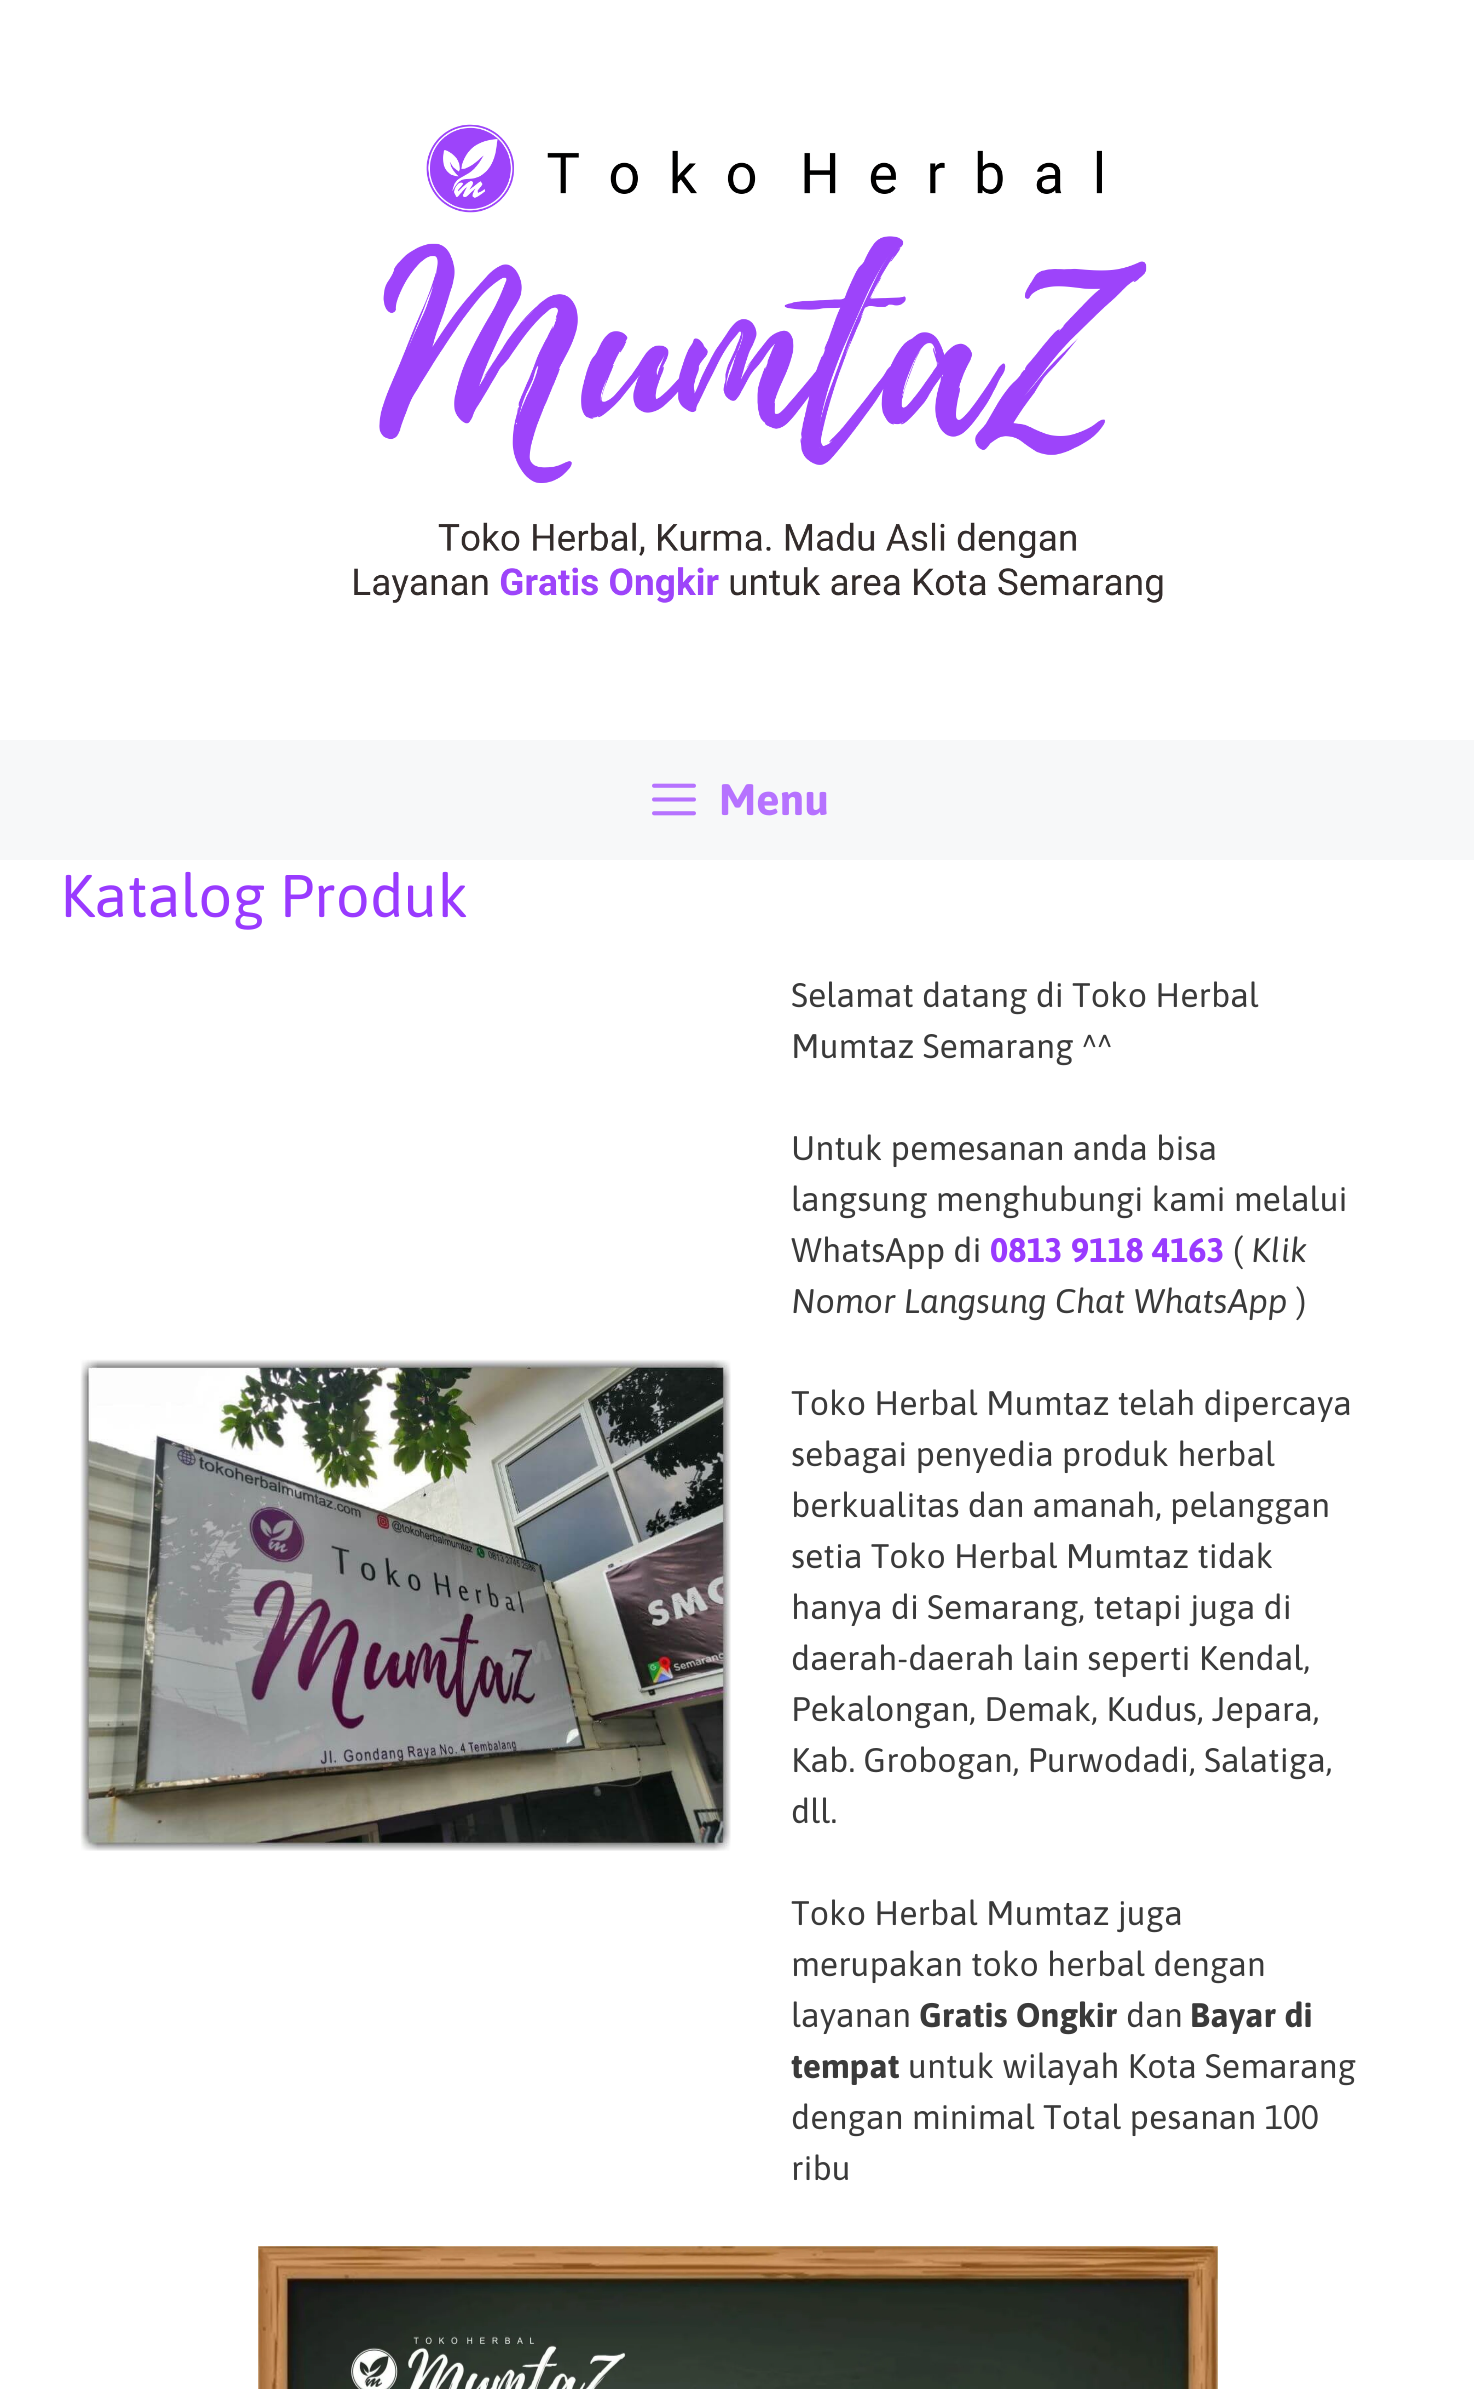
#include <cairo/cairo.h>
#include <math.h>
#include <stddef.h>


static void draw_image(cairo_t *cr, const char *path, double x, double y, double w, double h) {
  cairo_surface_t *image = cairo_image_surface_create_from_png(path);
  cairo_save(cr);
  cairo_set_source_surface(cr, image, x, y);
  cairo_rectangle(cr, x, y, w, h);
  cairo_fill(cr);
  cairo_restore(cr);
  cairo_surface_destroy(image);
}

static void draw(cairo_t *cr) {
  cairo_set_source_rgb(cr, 1, 1, 1);
  cairo_paint(cr);
  draw_image(cr, "images/1.png", 354, 124, 809, 479);
  cairo_set_source_rgb(cr, 247 / 255.0, 248 / 255.0, 249 / 255.0);
  cairo_rectangle(cr, 0, 740, 1474, 120);
  cairo_fill(cr);
  draw_image(cr, "images/2.png", 652, 783, 44, 33);
  draw_image(cr, "images/3.png", 80, 1359, 651, 492);
  draw_image(cr, "images/4.png", 258, 2246, 960, 143);
  cairo_select_font_face(cr, "Asap", CAIRO_FONT_SLANT_NORMAL, CAIRO_FONT_WEIGHT_BOLD);
  cairo_set_font_size(cr, 44);
  cairo_set_source_rgb(cr, 182 / 255.0, 114 / 255.0, 1);
  cairo_move_to(cr, 719, 815);
  cairo_show_text(cr, "Menu");
  cairo_select_font_face(cr, "Asap", CAIRO_FONT_SLANT_NORMAL, CAIRO_FONT_WEIGHT_NORMAL);
  cairo_set_font_size(cr, 60);
  cairo_set_source_rgb(cr, 153 / 255.0, 58 / 255.0, 1);
  cairo_move_to(cr, 60, 917);
  cairo_show_text(cr, "Katalog Produk");
  cairo_set_font_size(cr, 34);
  cairo_set_source_rgb(cr, 58 / 255.0, 58 / 255.0, 58 / 255.0);
  cairo_move_to(cr, 791, 1007);
  cairo_show_text(cr, "Selamat datang di Toko Herbal");
  cairo_move_to(cr, 791, 1058);
  cairo_show_text(cr, "Mumtaz Semarang ^^");
  cairo_move_to(cr, 791, 1160);
  cairo_show_text(cr, "Untuk pemesanan anda bisa");
  cairo_move_to(cr, 791, 1211);
  cairo_show_text(cr, "langsung menghubungi kami melalui");
  cairo_move_to(cr, 791, 1262);
  cairo_show_text(cr, "WhatsApp di");
  cairo_select_font_face(cr, "Asap", CAIRO_FONT_SLANT_NORMAL, CAIRO_FONT_WEIGHT_BOLD);
  cairo_set_source_rgb(cr, 153 / 255.0, 58 / 255.0, 1);
  cairo_move_to(cr, 990, 1262);
  cairo_show_text(cr, "0813 9118 4163");
  cairo_select_font_face(cr, "Asap", CAIRO_FONT_SLANT_NORMAL, CAIRO_FONT_WEIGHT_NORMAL);
  cairo_set_source_rgb(cr, 58 / 255.0, 58 / 255.0, 58 / 255.0);
  cairo_move_to(cr, 1233, 1262);
  cairo_show_text(cr, "(");
  cairo_select_font_face(cr, "Asap", CAIRO_FONT_SLANT_ITALIC, CAIRO_FONT_WEIGHT_NORMAL);
  cairo_move_to(cr, 1251, 1262);
  cairo_show_text(cr, "Klik");
  cairo_move_to(cr, 791, 1313);
  cairo_show_text(cr, "Nomor Langsung Chat WhatsApp");
  cairo_select_font_face(cr, "Asap", CAIRO_FONT_SLANT_NORMAL, CAIRO_FONT_WEIGHT_NORMAL);
  cairo_move_to(cr, 1296, 1313);
  cairo_show_text(cr, ")");
  cairo_move_to(cr, 791, 1415);
  cairo_show_text(cr, "Toko Herbal Mumtaz telah dipercaya");
  cairo_move_to(cr, 791, 1466);
  cairo_show_text(cr, "sebagai penyedia produk herbal");
  cairo_move_to(cr, 791, 1517);
  cairo_show_text(cr, "berkualitas dan amanah, pelanggan");
  cairo_move_to(cr, 791, 1568);
  cairo_show_text(cr, "setia Toko Herbal Mumtaz tidak");
  cairo_move_to(cr, 791, 1619);
  cairo_show_text(cr, "hanya di Semarang, tetapi juga di");
  cairo_move_to(cr, 791, 1670);
  cairo_show_text(cr, "daerah-daerah lain seperti Kendal,");
  cairo_move_to(cr, 791, 1721);
  cairo_show_text(cr, "Pekalongan, Demak, Kudus, Jepara,");
  cairo_move_to(cr, 791, 1772);
  cairo_show_text(cr, "Kab. Grobogan, Purwodadi, Salatiga,");
  cairo_move_to(cr, 791, 1823);
  cairo_show_text(cr, "dll.");
  cairo_move_to(cr, 791, 1925);
  cairo_show_text(cr, "Toko Herbal Mumtaz juga");
  cairo_move_to(cr, 791, 1976);
  cairo_show_text(cr, "merupakan toko herbal dengan");
  cairo_move_to(cr, 791, 2027);
  cairo_show_text(cr, "layanan");
  cairo_select_font_face(cr, "Asap", CAIRO_FONT_SLANT_NORMAL, CAIRO_FONT_WEIGHT_BOLD);
  cairo_move_to(cr, 919, 2027);
  cairo_show_text(cr, "Gratis Ongkir");
  cairo_select_font_face(cr, "Asap", CAIRO_FONT_SLANT_NORMAL, CAIRO_FONT_WEIGHT_NORMAL);
  cairo_move_to(cr, 1126, 2027);
  cairo_show_text(cr, "dan");
  cairo_select_font_face(cr, "Asap", CAIRO_FONT_SLANT_NORMAL, CAIRO_FONT_WEIGHT_BOLD);
  cairo_move_to(cr, 1190, 2027);
  cairo_show_text(cr, "Bayar di");
  cairo_move_to(cr, 791, 2078);
  cairo_show_text(cr, "tempat");
  cairo_select_font_face(cr, "Asap", CAIRO_FONT_SLANT_NORMAL, CAIRO_FONT_WEIGHT_NORMAL);
  cairo_move_to(cr, 908, 2078);
  cairo_show_text(cr, "untuk wilayah Kota Semarang");
  cairo_move_to(cr, 791, 2129);
  cairo_show_text(cr, "dengan minimal Total pesanan 100");
  cairo_move_to(cr, 791, 2180);
  cairo_show_text(cr, "ribu");
}

int main(void) {
  cairo_surface_t *surface = cairo_image_surface_create(CAIRO_FORMAT_RGB24, 1474, 2389);
  cairo_t *cr = cairo_create(surface);
  cairo_font_options_t *options = cairo_font_options_create();
  cairo_font_options_set_hint_metrics(options, CAIRO_HINT_METRICS_OFF);
  cairo_font_options_set_hint_style(options, CAIRO_HINT_STYLE_NONE);
  cairo_set_font_options(cr, options);
  cairo_set_miter_limit(cr, 4);
  draw(cr);
  cairo_surface_write_to_png(surface, "out.png");
  cairo_font_options_destroy(options);
  cairo_destroy(cr);
  cairo_surface_destroy(surface);
  return 0;
}
